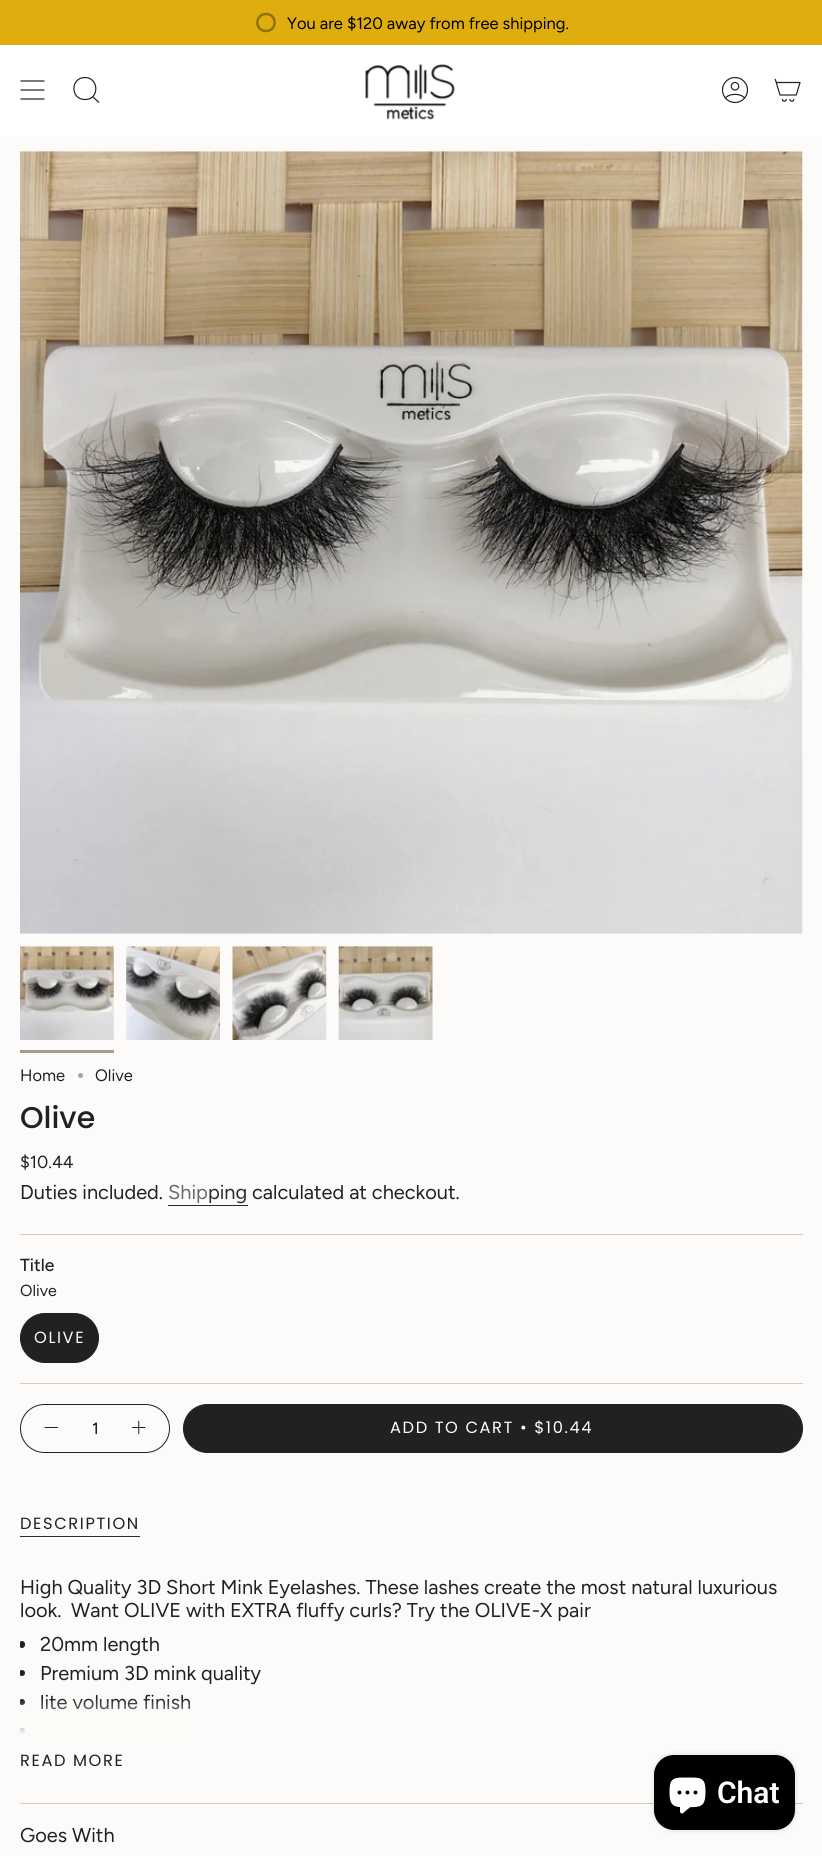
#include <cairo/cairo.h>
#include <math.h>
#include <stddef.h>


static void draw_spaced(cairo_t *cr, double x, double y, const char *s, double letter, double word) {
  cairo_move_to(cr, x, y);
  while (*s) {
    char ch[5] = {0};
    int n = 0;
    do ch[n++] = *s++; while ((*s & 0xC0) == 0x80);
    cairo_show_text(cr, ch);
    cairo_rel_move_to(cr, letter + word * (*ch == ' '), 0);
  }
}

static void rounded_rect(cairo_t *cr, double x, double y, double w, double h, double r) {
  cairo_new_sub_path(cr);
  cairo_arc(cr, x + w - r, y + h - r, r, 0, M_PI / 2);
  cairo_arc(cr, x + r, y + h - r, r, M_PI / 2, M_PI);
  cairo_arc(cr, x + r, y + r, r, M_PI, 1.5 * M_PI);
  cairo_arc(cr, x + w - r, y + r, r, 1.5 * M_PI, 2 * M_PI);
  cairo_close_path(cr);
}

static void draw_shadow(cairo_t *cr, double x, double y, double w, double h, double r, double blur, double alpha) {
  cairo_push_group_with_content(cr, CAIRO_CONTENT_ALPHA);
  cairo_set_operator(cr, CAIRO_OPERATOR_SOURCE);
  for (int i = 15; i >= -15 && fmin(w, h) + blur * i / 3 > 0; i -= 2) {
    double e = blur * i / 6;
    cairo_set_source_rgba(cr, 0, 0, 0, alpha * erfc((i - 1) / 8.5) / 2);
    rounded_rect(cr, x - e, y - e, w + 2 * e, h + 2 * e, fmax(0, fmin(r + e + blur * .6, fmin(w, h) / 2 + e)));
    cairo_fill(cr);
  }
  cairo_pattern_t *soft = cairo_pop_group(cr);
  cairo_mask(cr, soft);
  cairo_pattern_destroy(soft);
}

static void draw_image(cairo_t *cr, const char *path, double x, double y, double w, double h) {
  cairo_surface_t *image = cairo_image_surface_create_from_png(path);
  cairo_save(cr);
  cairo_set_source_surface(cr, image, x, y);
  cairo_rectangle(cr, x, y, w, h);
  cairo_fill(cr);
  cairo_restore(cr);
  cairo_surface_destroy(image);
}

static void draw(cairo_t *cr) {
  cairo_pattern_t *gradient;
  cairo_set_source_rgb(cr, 252 / 255.0, 251 / 255.0, 249 / 255.0);
  cairo_paint(cr);
  cairo_set_source_rgb(cr, 223 / 255.0, 173 / 255.0, 13 / 255.0);
  cairo_rectangle(cr, 0, 0, 822, 45);
  cairo_fill(cr);
  cairo_new_path(cr);
  cairo_move_to(cr, 266, 14);
  cairo_curve_to(cr, 254.5, 14, 254.5, 31, 266, 31);
  cairo_curve_to(cr, 277.5, 31, 277.5, 14, 266, 14);
  cairo_close_path(cr);
  cairo_set_source_rgb(cr, 145 / 255.0, 112 / 255.0, 8 / 255.0);
  cairo_set_line_width(cr, 2.5);
  cairo_stroke(cr);
  cairo_set_source_rgb(cr, 1, 1, 1);
  cairo_rectangle(cr, 0, 45, 822, 91);
  cairo_fill(cr);
  cairo_new_path(cr);
  cairo_move_to(cr, 21, 81);
  cairo_line_to(cr, 44, 81);
  cairo_move_to(cr, 21, 90);
  cairo_line_to(cr, 44, 90);
  cairo_move_to(cr, 21, 99);
  cairo_line_to(cr, 44, 99);
  cairo_set_source_rgb(cr, 33 / 255.0, 33 / 255.0, 33 / 255.0);
  cairo_set_line_width(cr, 1.2);
  cairo_set_line_cap(cr, CAIRO_LINE_CAP_ROUND);
  cairo_set_line_join(cr, CAIRO_LINE_JOIN_ROUND);
  cairo_stroke(cr);
  cairo_new_path(cr);
  cairo_move_to(cr, 85, 77.5);
  cairo_curve_to(cr, 99.5, 77.5, 99.5, 100.5, 84.5, 99.5);
  cairo_curve_to(cr, 70, 99, 70.5, 77.5, 85, 77.5);
  cairo_close_path(cr);
  cairo_move_to(cr, 92.5, 96.5);
  cairo_line_to(cr, 99, 102.5);
  cairo_set_line_cap(cr, CAIRO_LINE_CAP_BUTT);
  cairo_set_line_join(cr, CAIRO_LINE_JOIN_MITER);
  cairo_stroke(cr);
  draw_image(cr, "images/1.png", 365, 64, 91, 56);
  draw_image(cr, "images/2.png", 721, 76, 28, 28);
  draw_image(cr, "images/3.png", 774, 78, 27, 24);
  draw_image(cr, "images/4.png", 20, 151, 783, 783);
  draw_image(cr, "images/5.png", 20, 946, 94, 94);
  cairo_set_source_rgb(cr, 164 / 255.0, 156 / 255.0, 139 / 255.0);
  cairo_rectangle(cr, 20, 1050, 94, 3);
  cairo_fill(cr);
  draw_image(cr, "images/6.png", 126, 946, 94, 94);
  draw_image(cr, "images/7.png", 232, 946, 95, 94);
  draw_image(cr, "images/8.png", 338, 946, 95, 94);
  cairo_set_source_rgb(cr, 164 / 255.0, 164 / 255.0, 163 / 255.0);
  cairo_arc(cr, 80.5, 1075.5, 2.5, 0, 2 * M_PI);
  cairo_fill(cr);
  cairo_set_source_rgb(cr, 40 / 255.0, 44 / 255.0, 46 / 255.0);
  cairo_rectangle(cr, 168, 1205, 80, 1);
  cairo_fill(cr);
  cairo_set_source_rgb(cr, 209 / 255.0, 205 / 255.0, 196 / 255.0);
  cairo_rectangle(cr, 20, 1234, 783, 1);
  cairo_fill(cr);
  cairo_rectangle(cr, 20, 1383, 783, 1);
  cairo_fill(cr);
  cairo_set_source_rgb(cr, 33 / 255.0, 33 / 255.0, 33 / 255.0);
  rounded_rect(cr, 20.5, 1313.5, 78, 49, 24.5);
  cairo_fill_preserve(cr);
  cairo_set_line_width(cr, 1);
  cairo_stroke(cr);
  rounded_rect(cr, 20.5, 1404.5, 149, 48, 24);
  cairo_stroke(cr);
  cairo_new_path(cr);
  cairo_move_to(cr, 45, 1427.5);
  cairo_line_to(cr, 57.5, 1427.5);
  cairo_set_line_cap(cr, CAIRO_LINE_CAP_ROUND);
  cairo_set_line_join(cr, CAIRO_LINE_JOIN_ROUND);
  cairo_stroke(cr);
  draw_image(cr, "images/9.png", 132, 1420, 14, 15);
  rounded_rect(cr, 183.5, 1404.5, 619, 48, 24);
  cairo_fill_preserve(cr);
  cairo_set_line_cap(cr, CAIRO_LINE_CAP_BUTT);
  cairo_set_line_join(cr, CAIRO_LINE_JOIN_MITER);
  cairo_stroke(cr);
  cairo_set_source_rgb(cr, 40 / 255.0, 44 / 255.0, 46 / 255.0);
  cairo_rectangle(cr, 20, 1536, 120, 1);
  cairo_fill(cr);
  cairo_save(cr);
  cairo_rectangle(cr, 20, 1565, 764, 219);
  cairo_clip(cr);
  cairo_set_source_rgb(cr, 33 / 255.0, 33 / 255.0, 33 / 255.0);
  rounded_rect(cr, 19, 1641, 6, 7, 3);
  cairo_fill(cr);
  cairo_arc(cr, 22, 1673, 3, 0, 2 * M_PI);
  cairo_fill(cr);
  cairo_arc(cr, 22, 1702, 3, 0, 2 * M_PI);
  cairo_fill(cr);
  cairo_arc(cr, 22, 1731, 3, 0, 2 * M_PI);
  cairo_fill(cr);
  cairo_restore(cr);
  cairo_set_source_rgb(cr, 209 / 255.0, 205 / 255.0, 196 / 255.0);
  cairo_rectangle(cr, 20, 1803, 783, 1);
  cairo_fill(cr);
  cairo_set_source_rgb(cr, 0, 0, 0);
  draw_shadow(cr, 654, 1755, 141, 75, 20, 3, 0.15);
  cairo_set_source_rgb(cr, 0, 0, 0);
  rounded_rect(cr, 654, 1755, 141, 75, 20);
  cairo_fill(cr);
  draw_image(cr, "images/10.png", 669, 1777, 37, 37);
  cairo_select_font_face(cr, "Figtree", CAIRO_FONT_SLANT_NORMAL, CAIRO_FONT_WEIGHT_NORMAL);
  cairo_set_font_size(cr, 16.5);
  cairo_move_to(cr, 287, 29);
  cairo_show_text(cr, "You are $120 away from free shipping.");
  cairo_set_source_rgb(cr, 33 / 255.0, 33 / 255.0, 33 / 255.0);
  cairo_move_to(cr, 20, 1081);
  cairo_show_text(cr, "Home");
  cairo_move_to(cr, 95, 1081);
  cairo_show_text(cr, "Olive");
  cairo_select_font_face(cr, "Poppins Medium", CAIRO_FONT_SLANT_NORMAL, CAIRO_FONT_WEIGHT_NORMAL);
  cairo_set_font_size(cr, 30);
  cairo_move_to(cr, 20, 1128);
  cairo_show_text(cr, "Olive");
  cairo_select_font_face(cr, "Figtree", CAIRO_FONT_SLANT_NORMAL, CAIRO_FONT_WEIGHT_NORMAL);
  cairo_set_font_size(cr, 17.5);
  cairo_move_to(cr, 20, 1168);
  cairo_show_text(cr, "$10.44");
  cairo_set_font_size(cr, 20);
  cairo_move_to(cr, 20, 1199);
  cairo_show_text(cr, "Duties included.");
  gradient = cairo_pattern_create_linear(168, 1193, 247, 1193);
  cairo_pattern_add_color_stop_rgba(gradient, 0, 104 / 255.0, 106 / 255.0, 107 / 255.0, 1);
  cairo_pattern_add_color_stop_rgba(gradient, 0.5, 104 / 255.0, 106 / 255.0, 107 / 255.0, 1);
  cairo_pattern_add_color_stop_rgba(gradient, 0.5, 40 / 255.0, 44 / 255.0, 46 / 255.0, 1);
  cairo_pattern_add_color_stop_rgba(gradient, 1, 40 / 255.0, 44 / 255.0, 46 / 255.0, 1);
  cairo_set_source(cr, gradient);
  cairo_pattern_destroy(gradient);
  cairo_move_to(cr, 168, 1199);
  cairo_show_text(cr, "Shipping");
  cairo_set_source_rgb(cr, 33 / 255.0, 33 / 255.0, 33 / 255.0);
  cairo_move_to(cr, 252, 1199);
  cairo_show_text(cr, "calculated at checkout.");
  cairo_select_font_face(cr, "Figtree Medium", CAIRO_FONT_SLANT_NORMAL, CAIRO_FONT_WEIGHT_NORMAL);
  cairo_set_font_size(cr, 17.5);
  cairo_move_to(cr, 20, 1271);
  cairo_show_text(cr, "Title");
  cairo_select_font_face(cr, "Figtree", CAIRO_FONT_SLANT_NORMAL, CAIRO_FONT_WEIGHT_NORMAL);
  cairo_set_font_size(cr, 16);
  cairo_move_to(cr, 20, 1296);
  cairo_show_text(cr, "Olive");
  cairo_select_font_face(cr, "Poppins", CAIRO_FONT_SLANT_NORMAL, CAIRO_FONT_WEIGHT_NORMAL);
  cairo_set_font_size(cr, 16.25);
  cairo_set_source_rgb(cr, 252 / 255.0, 251 / 255.0, 249 / 255.0);
  draw_spaced(cr, 34, 1343, "OLIVE", 1.6, 0);
  cairo_select_font_face(cr, "Figtree", CAIRO_FONT_SLANT_NORMAL, CAIRO_FONT_WEIGHT_NORMAL);
  cairo_set_source_rgb(cr, 0, 0, 0);
  cairo_move_to(cr, 92, 1434);
  cairo_show_text(cr, "1");
  cairo_select_font_face(cr, "Poppins", CAIRO_FONT_SLANT_NORMAL, CAIRO_FONT_WEIGHT_NORMAL);
  cairo_set_source_rgb(cr, 1, 1, 1);
  draw_spaced(cr, 390, 1433, "ADD TO CART • $10.44", 1.6, 0);
  cairo_set_source_rgb(cr, 33 / 255.0, 33 / 255.0, 33 / 255.0);
  draw_spaced(cr, 20, 1529, "DESCRIPTION", 1.6, 0);
  cairo_select_font_face(cr, "Figtree", CAIRO_FONT_SLANT_NORMAL, CAIRO_FONT_WEIGHT_NORMAL);
  cairo_set_font_size(cr, 20);
  cairo_move_to(cr, 20, 1594);
  cairo_show_text(cr, "High Quality 3D Short Mink Eyelashes. These lashes create the most natural luxurious");
  cairo_move_to(cr, 20, 1617);
  cairo_show_text(cr, "look.");
  cairo_move_to(cr, 71, 1617);
  cairo_show_text(cr, "Want OLIVE with EXTRA fluffy curls? Try the OLIVE-X pair");
  cairo_move_to(cr, 40, 1651);
  cairo_show_text(cr, "20mm length");
  cairo_move_to(cr, 40, 1680);
  cairo_show_text(cr, "Premium 3D mink quality");
  cairo_move_to(cr, 40, 1709);
  cairo_show_text(cr, "lite volume finish");
  gradient = cairo_pattern_create_linear(402, 1698, 402, 1735);
  cairo_pattern_add_color_stop_rgba(gradient, 0, 252 / 255.0, 251 / 255.0, 249 / 255.0, 0);
  cairo_pattern_add_color_stop_rgba(gradient, 1, 252 / 255.0, 251 / 255.0, 249 / 255.0, 1);
  cairo_set_source(cr, gradient);
  cairo_pattern_destroy(gradient);
  cairo_rectangle(cr, 20, 1699, 171, 35);
  cairo_fill(cr);
  cairo_select_font_face(cr, "Poppins", CAIRO_FONT_SLANT_NORMAL, CAIRO_FONT_WEIGHT_NORMAL);
  cairo_set_font_size(cr, 16.25);
  cairo_set_source_rgb(cr, 33 / 255.0, 33 / 255.0, 33 / 255.0);
  draw_spaced(cr, 20, 1766, "READ MORE", 1.6, 0);
  cairo_select_font_face(cr, "Figtree", CAIRO_FONT_SLANT_NORMAL, CAIRO_FONT_WEIGHT_NORMAL);
  cairo_set_font_size(cr, 20);
  cairo_move_to(cr, 20, 1842);
  cairo_show_text(cr, "Goes With");
  cairo_select_font_face(cr, "Roboto SemiBold", CAIRO_FONT_SLANT_NORMAL, CAIRO_FONT_WEIGHT_NORMAL);
  cairo_set_font_size(cr, 30);
  cairo_set_source_rgb(cr, 1, 1, 1);
  cairo_move_to(cr, 717, 1803);
  cairo_show_text(cr, "Chat");
}

int main(void) {
  cairo_surface_t *surface = cairo_image_surface_create(CAIRO_FORMAT_RGB24, 822, 1856);
  cairo_t *cr = cairo_create(surface);
  cairo_font_options_t *options = cairo_font_options_create();
  cairo_font_options_set_hint_metrics(options, CAIRO_HINT_METRICS_OFF);
  cairo_font_options_set_hint_style(options, CAIRO_HINT_STYLE_NONE);
  cairo_set_font_options(cr, options);
  cairo_set_miter_limit(cr, 4);
  draw(cr);
  cairo_surface_write_to_png(surface, "out.png");
  cairo_font_options_destroy(options);
  cairo_destroy(cr);
  cairo_surface_destroy(surface);
  return 0;
}
